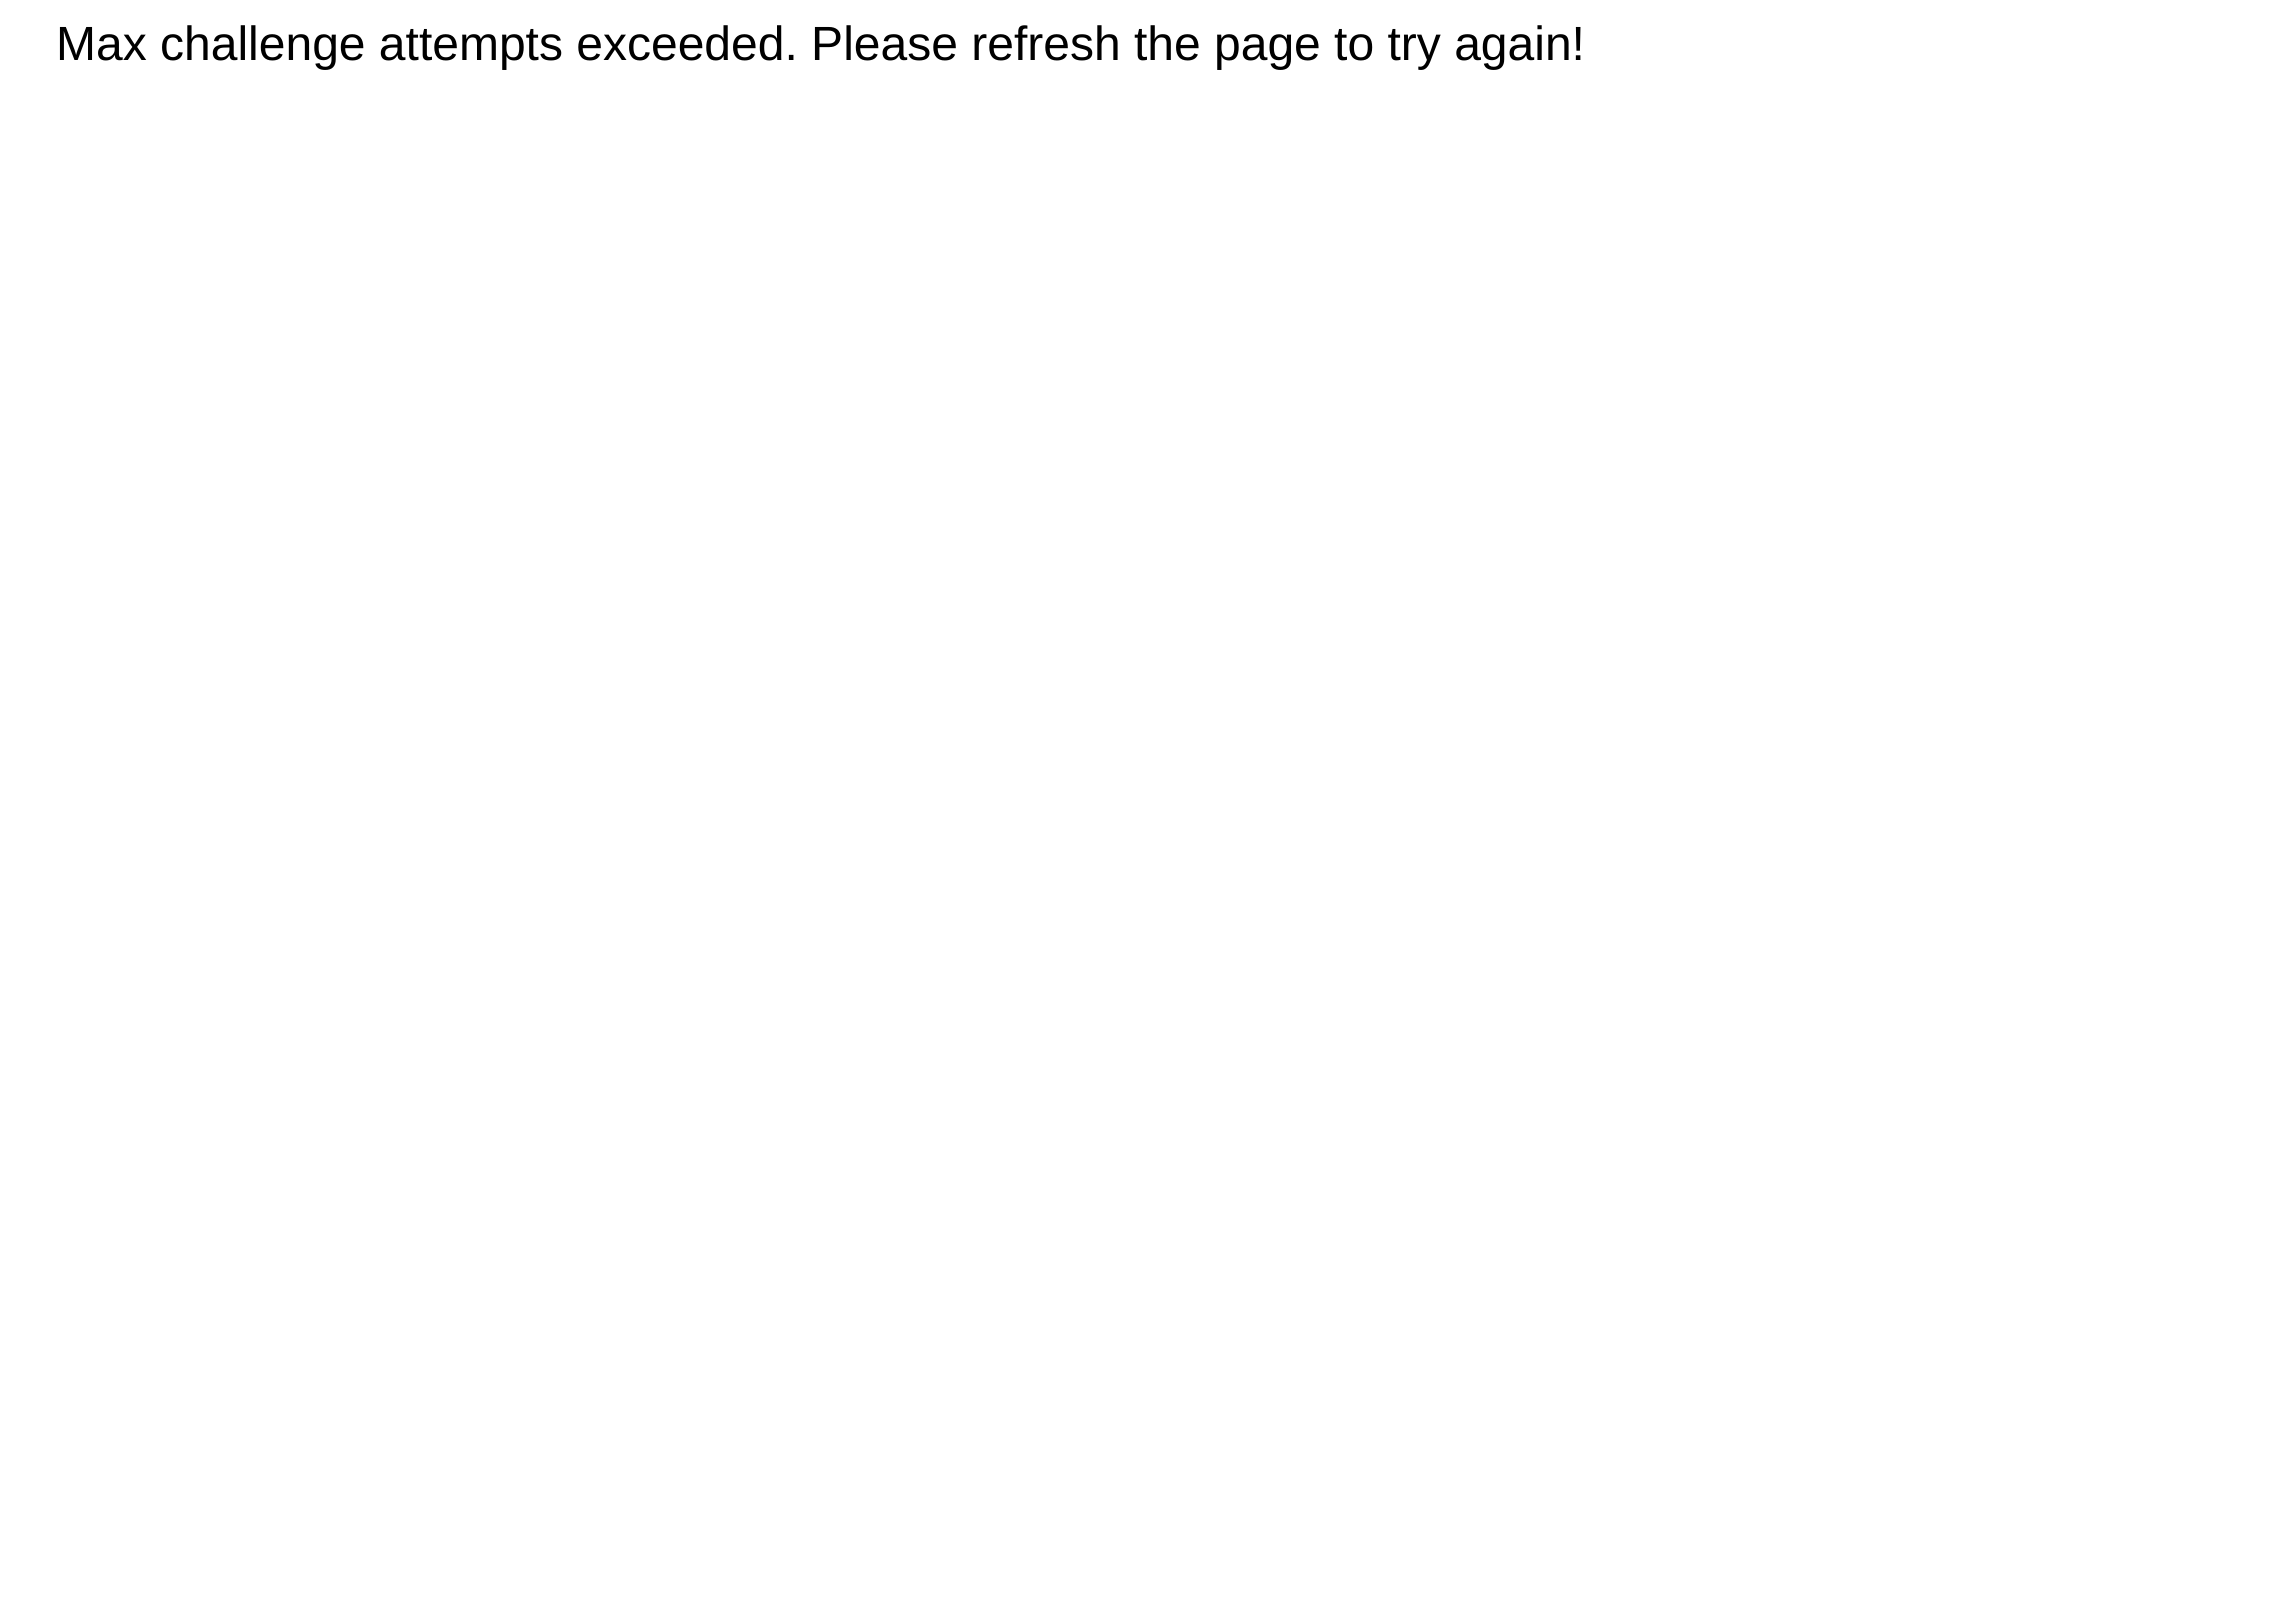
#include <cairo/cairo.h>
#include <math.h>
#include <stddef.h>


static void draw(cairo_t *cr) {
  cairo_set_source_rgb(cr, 1, 1, 1);
  cairo_paint(cr);
  cairo_select_font_face(cr, "Liberation Sans", CAIRO_FONT_SLANT_NORMAL, CAIRO_FONT_WEIGHT_NORMAL);
  cairo_set_font_size(cr, 48);
  cairo_set_source_rgb(cr, 0, 0, 0);
  cairo_move_to(cr, 56, 60);
  cairo_show_text(cr, "Max challenge attempts exceeded. Please refresh the page to try again!");
}

int main(void) {
  cairo_surface_t *surface = cairo_image_surface_create(CAIRO_FORMAT_RGB24, 2293, 1598);
  cairo_t *cr = cairo_create(surface);
  cairo_font_options_t *options = cairo_font_options_create();
  cairo_font_options_set_hint_metrics(options, CAIRO_HINT_METRICS_OFF);
  cairo_font_options_set_hint_style(options, CAIRO_HINT_STYLE_NONE);
  cairo_set_font_options(cr, options);
  cairo_set_miter_limit(cr, 4);
  draw(cr);
  cairo_surface_write_to_png(surface, "out.png");
  cairo_font_options_destroy(options);
  cairo_destroy(cr);
  cairo_surface_destroy(surface);
  return 0;
}
